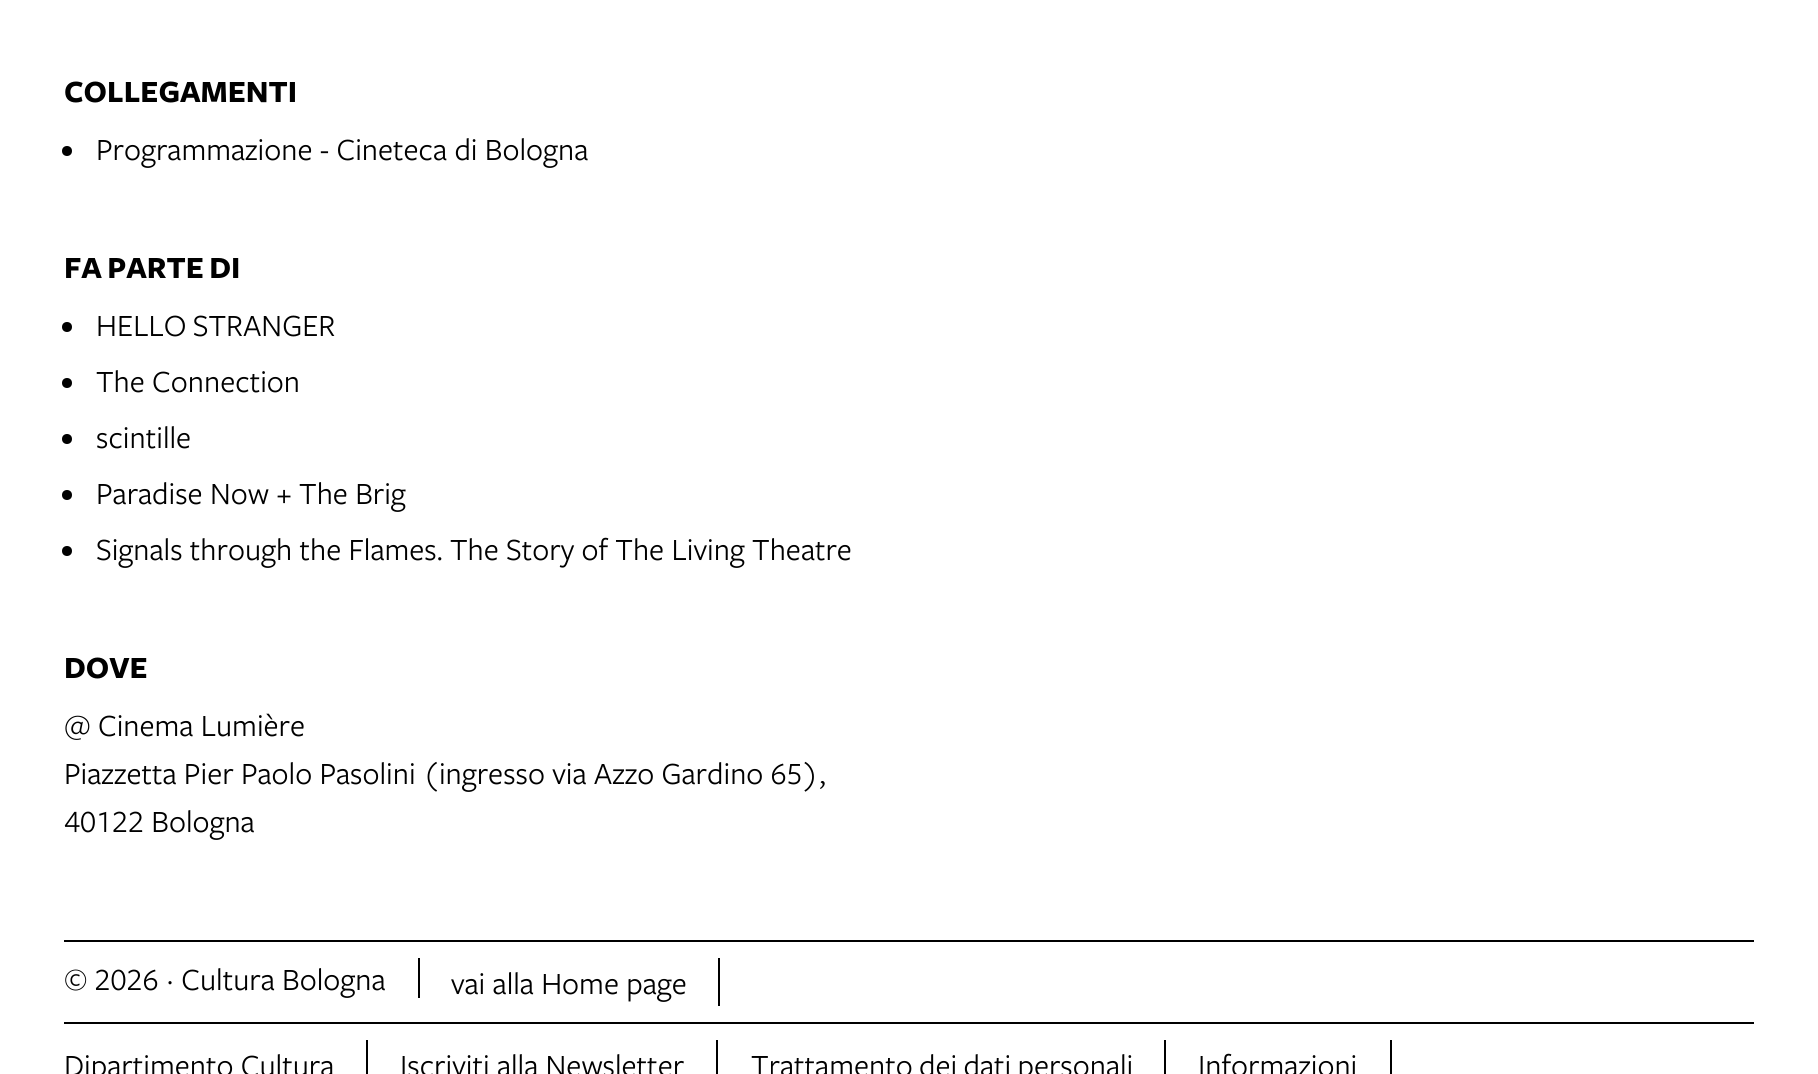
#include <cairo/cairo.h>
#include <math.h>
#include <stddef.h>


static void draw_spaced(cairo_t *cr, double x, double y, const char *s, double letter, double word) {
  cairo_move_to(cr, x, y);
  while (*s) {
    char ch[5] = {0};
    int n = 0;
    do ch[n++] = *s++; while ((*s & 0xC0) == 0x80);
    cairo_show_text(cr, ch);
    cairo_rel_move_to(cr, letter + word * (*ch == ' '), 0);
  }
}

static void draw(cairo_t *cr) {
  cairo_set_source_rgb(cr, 1, 1, 1);
  cairo_paint(cr);
  cairo_set_source_rgb(cr, 0, 0, 0);
  cairo_arc(cr, 67, 151, 5, 0, 2 * M_PI);
  cairo_fill(cr);
  cairo_arc(cr, 67, 327, 5, 0, 2 * M_PI);
  cairo_fill(cr);
  cairo_arc(cr, 67, 383, 5, 0, 2 * M_PI);
  cairo_fill(cr);
  cairo_arc(cr, 67, 439, 5, 0, 2 * M_PI);
  cairo_fill(cr);
  cairo_arc(cr, 67, 495, 5, 0, 2 * M_PI);
  cairo_fill(cr);
  cairo_arc(cr, 67, 551, 5, 0, 2 * M_PI);
  cairo_fill(cr);
  cairo_rectangle(cr, 64, 940, 1690, 2);
  cairo_fill(cr);
  cairo_rectangle(cr, 64, 1022, 1690, 2);
  cairo_fill(cr);
  cairo_rectangle(cr, 418, 958, 2, 40);
  cairo_fill(cr);
  cairo_rectangle(cr, 718, 958, 2, 48);
  cairo_fill(cr);
  cairo_rectangle(cr, 366, 1040, 2, 34);
  cairo_fill(cr);
  cairo_rectangle(cr, 716, 1040, 2, 34);
  cairo_fill(cr);
  cairo_rectangle(cr, 1164, 1040, 2, 34);
  cairo_fill(cr);
  cairo_rectangle(cr, 1390, 1040, 2, 34);
  cairo_fill(cr);
  cairo_select_font_face(cr, "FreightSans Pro", CAIRO_FONT_SLANT_NORMAL, CAIRO_FONT_WEIGHT_BOLD);
  cairo_set_font_size(cr, 32);
  cairo_move_to(cr, 64, 102);
  cairo_show_text(cr, "COLLEGAMENTI");
  cairo_select_font_face(cr, "FreightSans Pro", CAIRO_FONT_SLANT_NORMAL, CAIRO_FONT_WEIGHT_NORMAL);
  cairo_move_to(cr, 96, 160);
  cairo_show_text(cr, "Programmazione - Cineteca di Bologna");
  cairo_select_font_face(cr, "FreightSans Pro", CAIRO_FONT_SLANT_NORMAL, CAIRO_FONT_WEIGHT_BOLD);
  draw_spaced(cr, 64, 278, "FA PARTE DI", 0, -2);
  cairo_select_font_face(cr, "FreightSans Pro", CAIRO_FONT_SLANT_NORMAL, CAIRO_FONT_WEIGHT_NORMAL);
  draw_spaced(cr, 96, 336, "HELLO STRANGER", 0, -1);
  cairo_move_to(cr, 96, 392);
  cairo_show_text(cr, "The Connection");
  cairo_move_to(cr, 96, 448);
  cairo_show_text(cr, "scintille");
  cairo_move_to(cr, 96, 504);
  cairo_show_text(cr, "Paradise Now + The Brig");
  cairo_move_to(cr, 96, 560);
  cairo_show_text(cr, "Signals through the Flames. The Story of The Living Theatre");
  cairo_select_font_face(cr, "FreightSans Pro", CAIRO_FONT_SLANT_NORMAL, CAIRO_FONT_WEIGHT_BOLD);
  cairo_move_to(cr, 64, 678);
  cairo_show_text(cr, "DOVE");
  cairo_select_font_face(cr, "FreightSans Pro", CAIRO_FONT_SLANT_NORMAL, CAIRO_FONT_WEIGHT_NORMAL);
  cairo_move_to(cr, 64, 736);
  cairo_show_text(cr, "@ Cinema Lumière");
  cairo_select_font_face(cr, "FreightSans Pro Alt", CAIRO_FONT_SLANT_NORMAL, CAIRO_FONT_WEIGHT_NORMAL);
  cairo_move_to(cr, 64, 784);
  cairo_show_text(cr, "Piazzetta Pier Paolo Pasolini (ingresso via Azzo Gardino 65),");
  cairo_move_to(cr, 64, 832);
  cairo_show_text(cr, "40122 Bologna");
  cairo_move_to(cr, 64, 990);
  cairo_show_text(cr, "© 2026 · Cultura Bologna");
  cairo_select_font_face(cr, "FreightSans Pro", CAIRO_FONT_SLANT_NORMAL, CAIRO_FONT_WEIGHT_NORMAL);
  cairo_move_to(cr, 451, 994);
  cairo_show_text(cr, "vai alla Home page");
  cairo_move_to(cr, 64, 1076);
  cairo_show_text(cr, "Dipartimento Cultura");
  cairo_move_to(cr, 400, 1076);
  cairo_show_text(cr, "Iscriviti alla Newsletter");
  draw_spaced(cr, 751, 1076, "Trattamento dei dati personali", 0, -1);
  cairo_move_to(cr, 1198, 1076);
  cairo_show_text(cr, "Informazioni");
}

int main(void) {
  cairo_surface_t *surface = cairo_image_surface_create(CAIRO_FORMAT_RGB24, 1818, 1074);
  cairo_t *cr = cairo_create(surface);
  cairo_font_options_t *options = cairo_font_options_create();
  cairo_font_options_set_hint_metrics(options, CAIRO_HINT_METRICS_OFF);
  cairo_font_options_set_hint_style(options, CAIRO_HINT_STYLE_NONE);
  cairo_set_font_options(cr, options);
  cairo_set_miter_limit(cr, 4);
  draw(cr);
  cairo_surface_write_to_png(surface, "out.png");
  cairo_font_options_destroy(options);
  cairo_destroy(cr);
  cairo_surface_destroy(surface);
  return 0;
}
